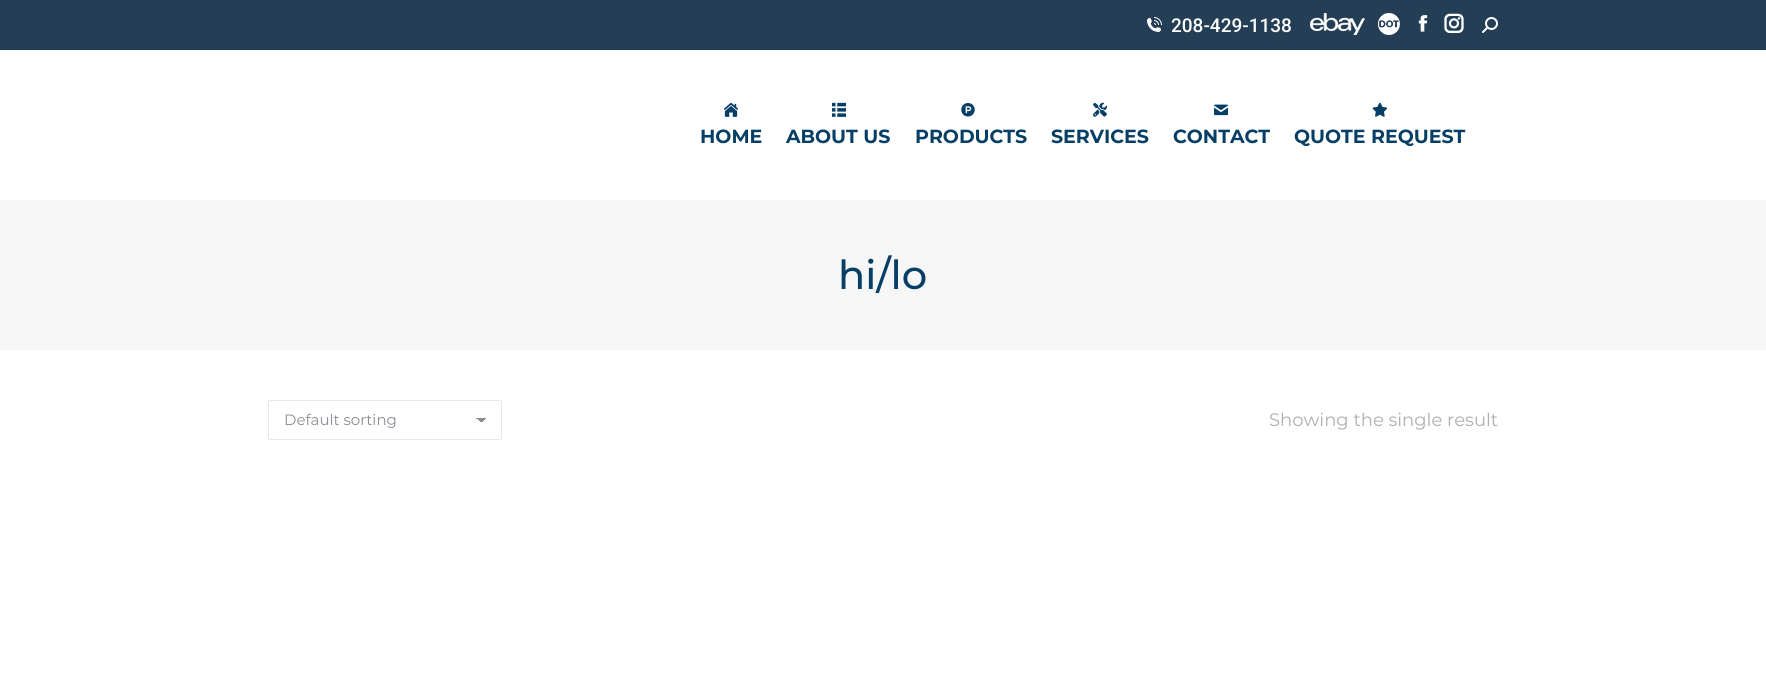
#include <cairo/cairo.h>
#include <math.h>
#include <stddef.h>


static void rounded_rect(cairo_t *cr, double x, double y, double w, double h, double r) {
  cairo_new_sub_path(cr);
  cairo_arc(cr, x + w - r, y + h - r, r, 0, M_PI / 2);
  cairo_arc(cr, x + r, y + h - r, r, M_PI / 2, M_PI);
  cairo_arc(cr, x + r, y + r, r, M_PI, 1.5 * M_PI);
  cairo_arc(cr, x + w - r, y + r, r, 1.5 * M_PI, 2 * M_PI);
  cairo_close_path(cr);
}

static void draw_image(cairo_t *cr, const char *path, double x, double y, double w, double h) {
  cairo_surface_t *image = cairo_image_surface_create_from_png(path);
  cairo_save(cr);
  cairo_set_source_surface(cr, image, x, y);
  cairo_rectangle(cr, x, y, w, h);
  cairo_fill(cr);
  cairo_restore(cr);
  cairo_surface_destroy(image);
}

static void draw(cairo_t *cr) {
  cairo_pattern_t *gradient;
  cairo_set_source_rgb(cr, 1, 1, 1);
  cairo_paint(cr);
  cairo_set_source_rgb(cr, 36 / 255.0, 62 / 255.0, 86 / 255.0);
  cairo_rectangle(cr, 0, 0, 1766, 50);
  cairo_fill(cr);
  draw_image(cr, "images/1.png", 1147, 17, 15, 15);
  draw_image(cr, "images/2.png", 1310, 13, 55, 22);
  draw_image(cr, "images/3.png", 1378, 13, 22, 22);
  draw_image(cr, "images/4.png", 1418, 15, 10, 17);
  draw_image(cr, "images/5.png", 1444, 13, 20, 20);
  draw_image(cr, "images/6.png", 1482, 17, 16, 16);
  draw_image(cr, "images/7.png", 724, 102, 14, 15);
  draw_image(cr, "images/8.png", 832, 102, 14, 15);
  draw_image(cr, "images/9.png", 961, 103, 14, 14);
  draw_image(cr, "images/10.png", 1093, 102, 14, 15);
  draw_image(cr, "images/11.png", 1214, 104, 14, 12);
  draw_image(cr, "images/12.png", 1372, 102, 16, 15);
  cairo_set_source_rgb(cr, 246 / 255.0, 246 / 255.0, 246 / 255.0);
  cairo_rectangle(cr, 0, 200, 1766, 150);
  cairo_fill(cr);
  gradient = cairo_pattern_create_linear(481, 418, 486, 423);
  cairo_pattern_add_color_stop_rgba(gradient, 0.5, 139 / 255.0, 141 / 255.0, 148 / 255.0, 1);
  cairo_pattern_add_color_stop_rgba(gradient, 0.5, 253 / 255.0, 253 / 255.0, 253 / 255.0, 1);
  cairo_set_source(cr, gradient);
  cairo_pattern_destroy(gradient);
  cairo_rectangle(cr, 481, 418, 5, 4);
  cairo_fill(cr);
  gradient = cairo_pattern_create_linear(476, 423, 481, 418);
  cairo_pattern_add_color_stop_rgba(gradient, 0.5, 253 / 255.0, 253 / 255.0, 253 / 255.0, 1);
  cairo_pattern_add_color_stop_rgba(gradient, 0.5, 139 / 255.0, 141 / 255.0, 148 / 255.0, 1);
  cairo_set_source(cr, gradient);
  cairo_pattern_destroy(gradient);
  cairo_rectangle(cr, 476, 418, 5, 4);
  cairo_fill(cr);
  rounded_rect(cr, 268.5, 400.5, 233, 39, 1.5);
  cairo_set_source_rgb(cr, 231 / 255.0, 231 / 255.0, 231 / 255.0);
  cairo_set_line_width(cr, 1);
  cairo_stroke(cr);
  cairo_select_font_face(cr, "Roboto Medium", CAIRO_FONT_SLANT_NORMAL, CAIRO_FONT_WEIGHT_NORMAL);
  cairo_set_font_size(cr, 19);
  cairo_set_source_rgb(cr, 1, 1, 1);
  cairo_move_to(cr, 1171, 32);
  cairo_show_text(cr, "208-429-1138");
  cairo_select_font_face(cr, "Montserrat", CAIRO_FONT_SLANT_NORMAL, CAIRO_FONT_WEIGHT_BOLD);
  cairo_set_source_rgb(cr, 6 / 255.0, 63 / 255.0, 102 / 255.0);
  cairo_move_to(cr, 700, 143);
  cairo_show_text(cr, "HOME");
  cairo_move_to(cr, 786, 143);
  cairo_show_text(cr, "ABOUT US");
  cairo_move_to(cr, 915, 143);
  cairo_show_text(cr, "PRODUCTS");
  cairo_move_to(cr, 1051, 143);
  cairo_show_text(cr, "SERVICES");
  cairo_move_to(cr, 1173, 143);
  cairo_show_text(cr, "CONTACT");
  cairo_move_to(cr, 1294, 143);
  cairo_show_text(cr, "QUOTE REQUEST");
  cairo_select_font_face(cr, "Montserrat Medium", CAIRO_FONT_SLANT_NORMAL, CAIRO_FONT_WEIGHT_NORMAL);
  cairo_set_font_size(cr, 40);
  cairo_move_to(cr, 838, 289);
  cairo_show_text(cr, "hi/lo");
  cairo_select_font_face(cr, "Montserrat", CAIRO_FONT_SLANT_NORMAL, CAIRO_FONT_WEIGHT_NORMAL);
  cairo_set_font_size(cr, 15);
  cairo_set_source_rgb(cr, 139 / 255.0, 141 / 255.0, 148 / 255.0);
  cairo_move_to(cr, 284, 425);
  cairo_show_text(cr, "Default sorting");
  cairo_set_font_size(cr, 18);
  cairo_set_source_rgb(cr, 173 / 255.0, 175 / 255.0, 179 / 255.0);
  cairo_move_to(cr, 1269, 426);
  cairo_show_text(cr, "Showing the single result");
}

int main(void) {
  cairo_surface_t *surface = cairo_image_surface_create(CAIRO_FORMAT_RGB24, 1766, 697);
  cairo_t *cr = cairo_create(surface);
  cairo_font_options_t *options = cairo_font_options_create();
  cairo_font_options_set_hint_metrics(options, CAIRO_HINT_METRICS_OFF);
  cairo_font_options_set_hint_style(options, CAIRO_HINT_STYLE_NONE);
  cairo_set_font_options(cr, options);
  cairo_set_miter_limit(cr, 4);
  draw(cr);
  cairo_surface_write_to_png(surface, "out.png");
  cairo_font_options_destroy(options);
  cairo_destroy(cr);
  cairo_surface_destroy(surface);
  return 0;
}
